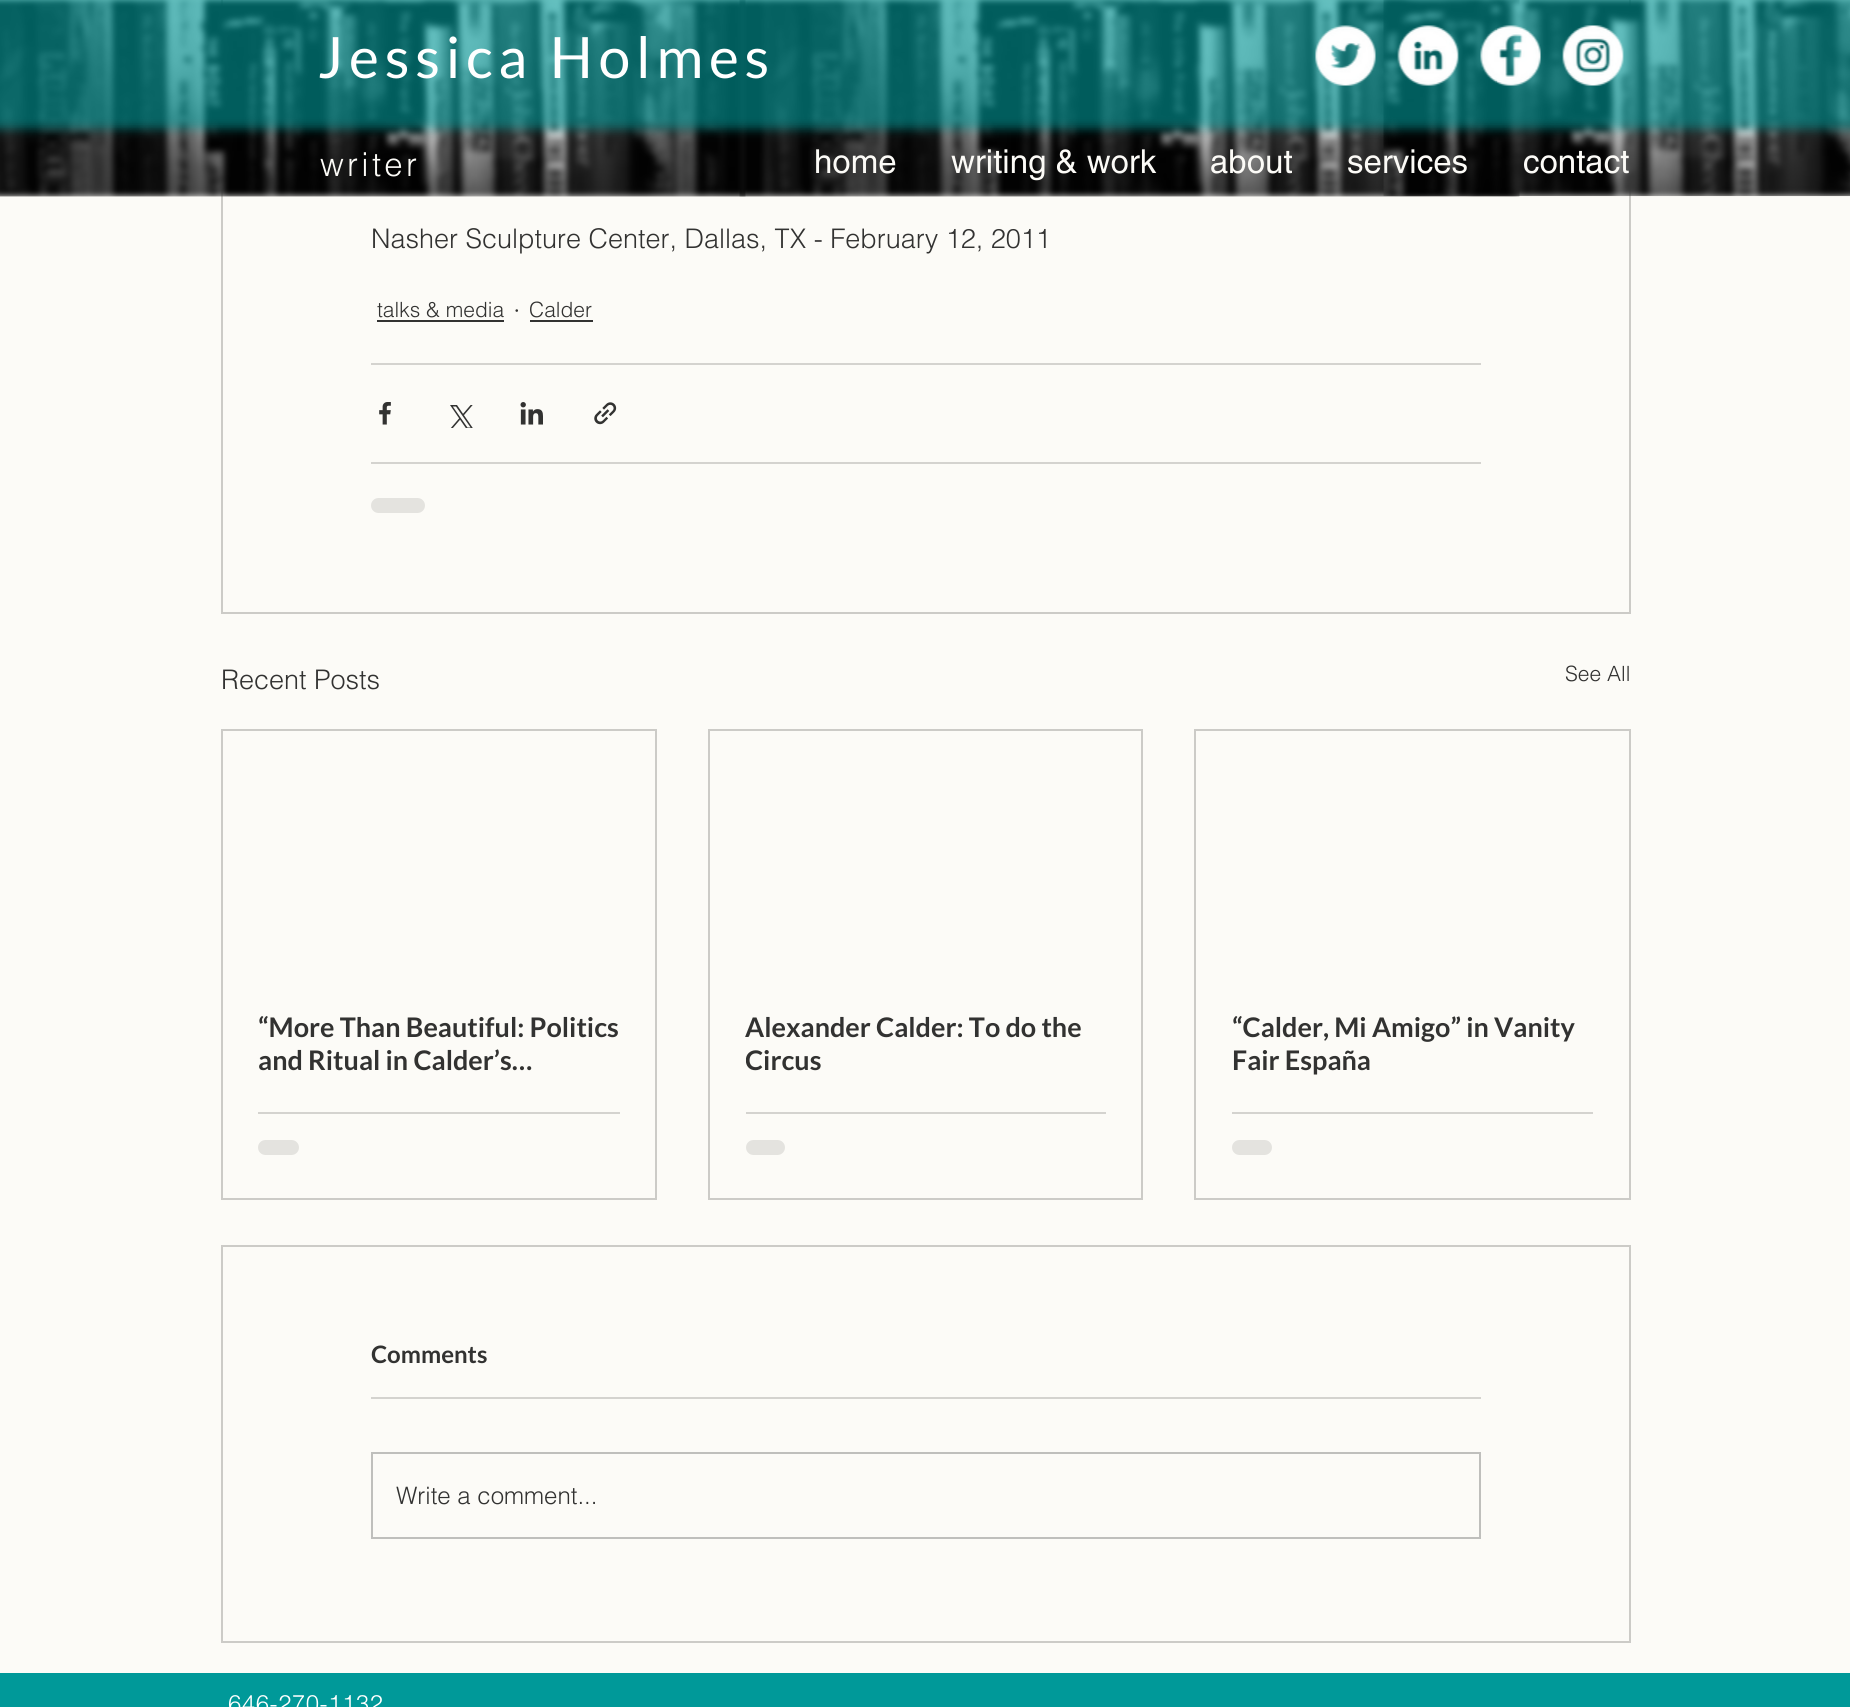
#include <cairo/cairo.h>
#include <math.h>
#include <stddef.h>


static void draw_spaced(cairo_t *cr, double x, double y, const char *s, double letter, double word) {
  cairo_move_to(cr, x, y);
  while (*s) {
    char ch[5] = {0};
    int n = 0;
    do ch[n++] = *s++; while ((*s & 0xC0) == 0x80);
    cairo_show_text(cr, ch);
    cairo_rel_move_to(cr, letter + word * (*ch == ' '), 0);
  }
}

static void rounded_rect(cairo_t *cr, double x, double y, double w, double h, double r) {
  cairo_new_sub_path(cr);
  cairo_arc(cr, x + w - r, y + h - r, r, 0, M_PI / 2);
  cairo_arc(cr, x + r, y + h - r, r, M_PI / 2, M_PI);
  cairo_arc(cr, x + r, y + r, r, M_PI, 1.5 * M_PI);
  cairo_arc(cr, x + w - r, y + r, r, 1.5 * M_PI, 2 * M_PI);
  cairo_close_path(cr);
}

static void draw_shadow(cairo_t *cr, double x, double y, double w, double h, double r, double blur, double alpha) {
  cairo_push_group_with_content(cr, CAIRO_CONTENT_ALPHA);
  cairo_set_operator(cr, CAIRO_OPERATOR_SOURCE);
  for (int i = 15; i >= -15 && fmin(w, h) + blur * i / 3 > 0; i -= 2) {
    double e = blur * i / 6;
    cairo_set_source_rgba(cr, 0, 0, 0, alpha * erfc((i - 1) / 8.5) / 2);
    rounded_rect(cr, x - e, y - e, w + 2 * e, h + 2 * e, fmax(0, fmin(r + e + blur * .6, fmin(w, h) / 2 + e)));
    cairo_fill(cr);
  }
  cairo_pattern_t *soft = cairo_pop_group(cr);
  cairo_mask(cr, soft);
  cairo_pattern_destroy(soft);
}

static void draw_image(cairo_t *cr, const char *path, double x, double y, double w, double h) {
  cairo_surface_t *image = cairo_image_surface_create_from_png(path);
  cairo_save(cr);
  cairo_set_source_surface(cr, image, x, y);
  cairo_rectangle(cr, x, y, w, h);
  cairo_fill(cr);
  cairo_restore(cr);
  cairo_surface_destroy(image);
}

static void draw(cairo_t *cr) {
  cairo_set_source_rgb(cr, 252 / 255.0, 251 / 255.0, 247 / 255.0);
  cairo_paint(cr);
  cairo_rectangle(cr, 222, -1, 1408, 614);
  cairo_set_source_rgb(cr, 204 / 255.0, 203 / 255.0, 199 / 255.0);
  cairo_stroke(cr);
  draw_image(cr, "images/1.png", 0, 0, 746, 197);
  draw_image(cr, "images/2.png", 739, 0, 781, 197);
  draw_image(cr, "images/3.png", 1383, 0, 467, 197);
  cairo_save(cr);
  cairo_set_fill_rule(cr, CAIRO_FILL_RULE_EVEN_ODD);
  cairo_new_path(cr);
  cairo_move_to(cr, 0, 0);
  cairo_line_to(cr, 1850, 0);
  cairo_line_to(cr, 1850, 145);
  cairo_line_to(cr, 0, 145);
  cairo_close_path(cr);
  cairo_move_to(cr, -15, 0);
  cairo_line_to(cr, 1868, 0);
  cairo_line_to(cr, 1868, 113);
  cairo_line_to(cr, -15, 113);
  cairo_close_path(cr);
  cairo_clip(cr);
  cairo_set_source_rgb(cr, 0, 153 / 255.0, 153 / 255.0);
  draw_shadow(cr, -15, -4, 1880, 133, 0, 5, 0.6);
  cairo_restore(cr);
  cairo_set_source_rgba(cr, 0, 153 / 255.0, 153 / 255.0, 0.6);
  cairo_rectangle(cr, 0, 0, 1850, 113);
  cairo_fill(cr);
  draw_image(cr, "images/4.png", 1315, 25, 61, 61);
  draw_image(cr, "images/5.png", 1397, 25, 62, 61);
  draw_image(cr, "images/6.png", 1480, 25, 61, 61);
  draw_image(cr, "images/7.png", 1562, 25, 62, 61);
  cairo_set_source_rgb(cr, 50 / 255.0, 50 / 255.0, 49 / 255.0);
  cairo_rectangle(cr, 377, 320, 127, 2);
  cairo_fill(cr);
  cairo_rectangle(cr, 530, 320, 63, 2);
  cairo_fill(cr);
  cairo_set_source_rgb(cr, 212 / 255.0, 211 / 255.0, 207 / 255.0);
  cairo_rectangle(cr, 371, 363, 1110, 2);
  cairo_fill(cr);
  draw_image(cr, "images/8.png", 379, 402, 12, 23);
  draw_image(cr, "images/9.png", 450, 405, 23, 23);
  draw_image(cr, "images/10.png", 520, 402, 23, 23);
  draw_image(cr, "images/11.png", 594, 402, 23, 23);
  cairo_rectangle(cr, 371, 462, 1110, 2);
  cairo_fill(cr);
  cairo_set_source_rgb(cr, 228 / 255.0, 227 / 255.0, 223 / 255.0);
  rounded_rect(cr, 371, 498, 54, 15, 7.5);
  cairo_fill(cr);
  cairo_rectangle(cr, 222, 730, 434, 469);
  cairo_set_source_rgb(cr, 204 / 255.0, 203 / 255.0, 199 / 255.0);
  cairo_stroke(cr);
  cairo_set_source_rgb(cr, 212 / 255.0, 211 / 255.0, 207 / 255.0);
  cairo_rectangle(cr, 258, 1112, 362, 2);
  cairo_fill(cr);
  cairo_set_source_rgb(cr, 228 / 255.0, 227 / 255.0, 223 / 255.0);
  rounded_rect(cr, 258, 1140, 41, 15, 7.5);
  cairo_fill(cr);
  cairo_rectangle(cr, 709, 730, 433, 469);
  cairo_set_source_rgb(cr, 204 / 255.0, 203 / 255.0, 199 / 255.0);
  cairo_stroke(cr);
  cairo_set_source_rgb(cr, 212 / 255.0, 211 / 255.0, 207 / 255.0);
  cairo_rectangle(cr, 746, 1112, 360, 2);
  cairo_fill(cr);
  cairo_set_source_rgb(cr, 228 / 255.0, 227 / 255.0, 223 / 255.0);
  rounded_rect(cr, 746, 1140, 39, 15, 7.5);
  cairo_fill(cr);
  cairo_rectangle(cr, 1195, 730, 435, 469);
  cairo_set_source_rgb(cr, 204 / 255.0, 203 / 255.0, 199 / 255.0);
  cairo_stroke(cr);
  cairo_set_source_rgb(cr, 212 / 255.0, 211 / 255.0, 207 / 255.0);
  cairo_rectangle(cr, 1232, 1112, 361, 2);
  cairo_fill(cr);
  cairo_set_source_rgb(cr, 228 / 255.0, 227 / 255.0, 223 / 255.0);
  rounded_rect(cr, 1232, 1140, 40, 15, 7.5);
  cairo_fill(cr);
  cairo_rectangle(cr, 222, 1246, 1408, 396);
  cairo_set_source_rgb(cr, 204 / 255.0, 203 / 255.0, 199 / 255.0);
  cairo_stroke(cr);
  cairo_set_source_rgb(cr, 212 / 255.0, 211 / 255.0, 207 / 255.0);
  cairo_rectangle(cr, 371, 1397, 1110, 2);
  cairo_fill(cr);
  cairo_rectangle(cr, 372, 1453, 1108, 85);
  cairo_set_source_rgb(cr, 191 / 255.0, 191 / 255.0, 188 / 255.0);
  cairo_stroke(cr);
  cairo_set_source_rgb(cr, 0, 153 / 255.0, 153 / 255.0);
  cairo_rectangle(cr, 0, 1673, 1850, 34);
  cairo_fill(cr);
  cairo_select_font_face(cr, "Lato", CAIRO_FONT_SLANT_NORMAL, CAIRO_FONT_WEIGHT_NORMAL);
  cairo_set_font_size(cr, 57);
  cairo_set_source_rgb(cr, 1, 1, 1);
  draw_spaced(cr, 318, 78, "Jessica Holmes", 5.75, 0);
  cairo_select_font_face(cr, "helvetica Light", CAIRO_FONT_SLANT_NORMAL, CAIRO_FONT_WEIGHT_NORMAL);
  cairo_set_font_size(cr, 33);
  cairo_set_source_rgb(cr, 252 / 255.0, 251 / 255.0, 247 / 255.0);
  draw_spaced(cr, 320, 176, "writer", 3.25, 0);
  cairo_select_font_face(cr, "helvetica", CAIRO_FONT_SLANT_NORMAL, CAIRO_FONT_WEIGHT_NORMAL);
  cairo_move_to(cr, 814, 173);
  cairo_show_text(cr, "home");
  cairo_move_to(cr, 951, 173);
  cairo_show_text(cr, "writing & work");
  cairo_move_to(cr, 1210, 173);
  cairo_show_text(cr, "about");
  cairo_move_to(cr, 1347, 173);
  cairo_show_text(cr, "services");
  cairo_move_to(cr, 1523, 173);
  cairo_show_text(cr, "contact");
  cairo_select_font_face(cr, "helvetica Light", CAIRO_FONT_SLANT_NORMAL, CAIRO_FONT_WEIGHT_NORMAL);
  cairo_set_font_size(cr, 27);
  cairo_set_source_rgb(cr, 50 / 255.0, 50 / 255.0, 49 / 255.0);
  cairo_move_to(cr, 371, 248);
  cairo_show_text(cr, "Nasher Sculpture Center, Dallas, TX - February 12, 2011");
  cairo_set_font_size(cr, 21);
  cairo_move_to(cr, 377, 317);
  cairo_show_text(cr, "talks & media");
  cairo_set_font_size(cr, 27);
  cairo_move_to(cr, 513, 320);
  cairo_show_text(cr, "·");
  cairo_set_font_size(cr, 21);
  cairo_move_to(cr, 529, 317);
  cairo_show_text(cr, "Calder");
  cairo_set_font_size(cr, 27);
  cairo_move_to(cr, 221, 689);
  cairo_show_text(cr, "Recent Posts");
  cairo_set_font_size(cr, 21);
  cairo_move_to(cr, 1565, 681);
  cairo_show_text(cr, "See All");
  cairo_select_font_face(cr, "Lato", CAIRO_FONT_SLANT_NORMAL, CAIRO_FONT_WEIGHT_BOLD);
  cairo_set_font_size(cr, 27);
  cairo_move_to(cr, 258, 1037);
  cairo_show_text(cr, "“More Than Beautiful: Politics");
  cairo_move_to(cr, 258, 1070);
  cairo_show_text(cr, "and Ritual in Calder’s…");
  cairo_move_to(cr, 745, 1037);
  cairo_show_text(cr, "Alexander Calder: To do the");
  cairo_save(cr);
  cairo_rectangle(cr, 746, 1010, 360, 66);
  cairo_clip(cr);
  cairo_move_to(cr, 745, 1070);
  cairo_show_text(cr, "Circus");
  cairo_restore(cr);
  cairo_move_to(cr, 1232, 1037);
  cairo_show_text(cr, "“Calder, Mi Amigo” in Vanity");
  cairo_move_to(cr, 1232, 1070);
  cairo_show_text(cr, "Fair España");
  cairo_set_font_size(cr, 24);
  cairo_move_to(cr, 371, 1363);
  cairo_show_text(cr, "Comments");
  cairo_select_font_face(cr, "helvetica Light", CAIRO_FONT_SLANT_NORMAL, CAIRO_FONT_WEIGHT_NORMAL);
  cairo_move_to(cr, 396, 1504);
  cairo_show_text(cr, "Write a comment...");
  cairo_set_source_rgb(cr, 1, 1, 1);
  draw_spaced(cr, 228, 1712, "646-270-1132", 0.5, 0);
}

int main(void) {
  cairo_surface_t *surface = cairo_image_surface_create(CAIRO_FORMAT_RGB24, 1850, 1707);
  cairo_t *cr = cairo_create(surface);
  cairo_font_options_t *options = cairo_font_options_create();
  cairo_font_options_set_hint_metrics(options, CAIRO_HINT_METRICS_OFF);
  cairo_font_options_set_hint_style(options, CAIRO_HINT_STYLE_NONE);
  cairo_set_font_options(cr, options);
  cairo_set_miter_limit(cr, 4);
  draw(cr);
  cairo_surface_write_to_png(surface, "out.png");
  cairo_font_options_destroy(options);
  cairo_destroy(cr);
  cairo_surface_destroy(surface);
  return 0;
}
